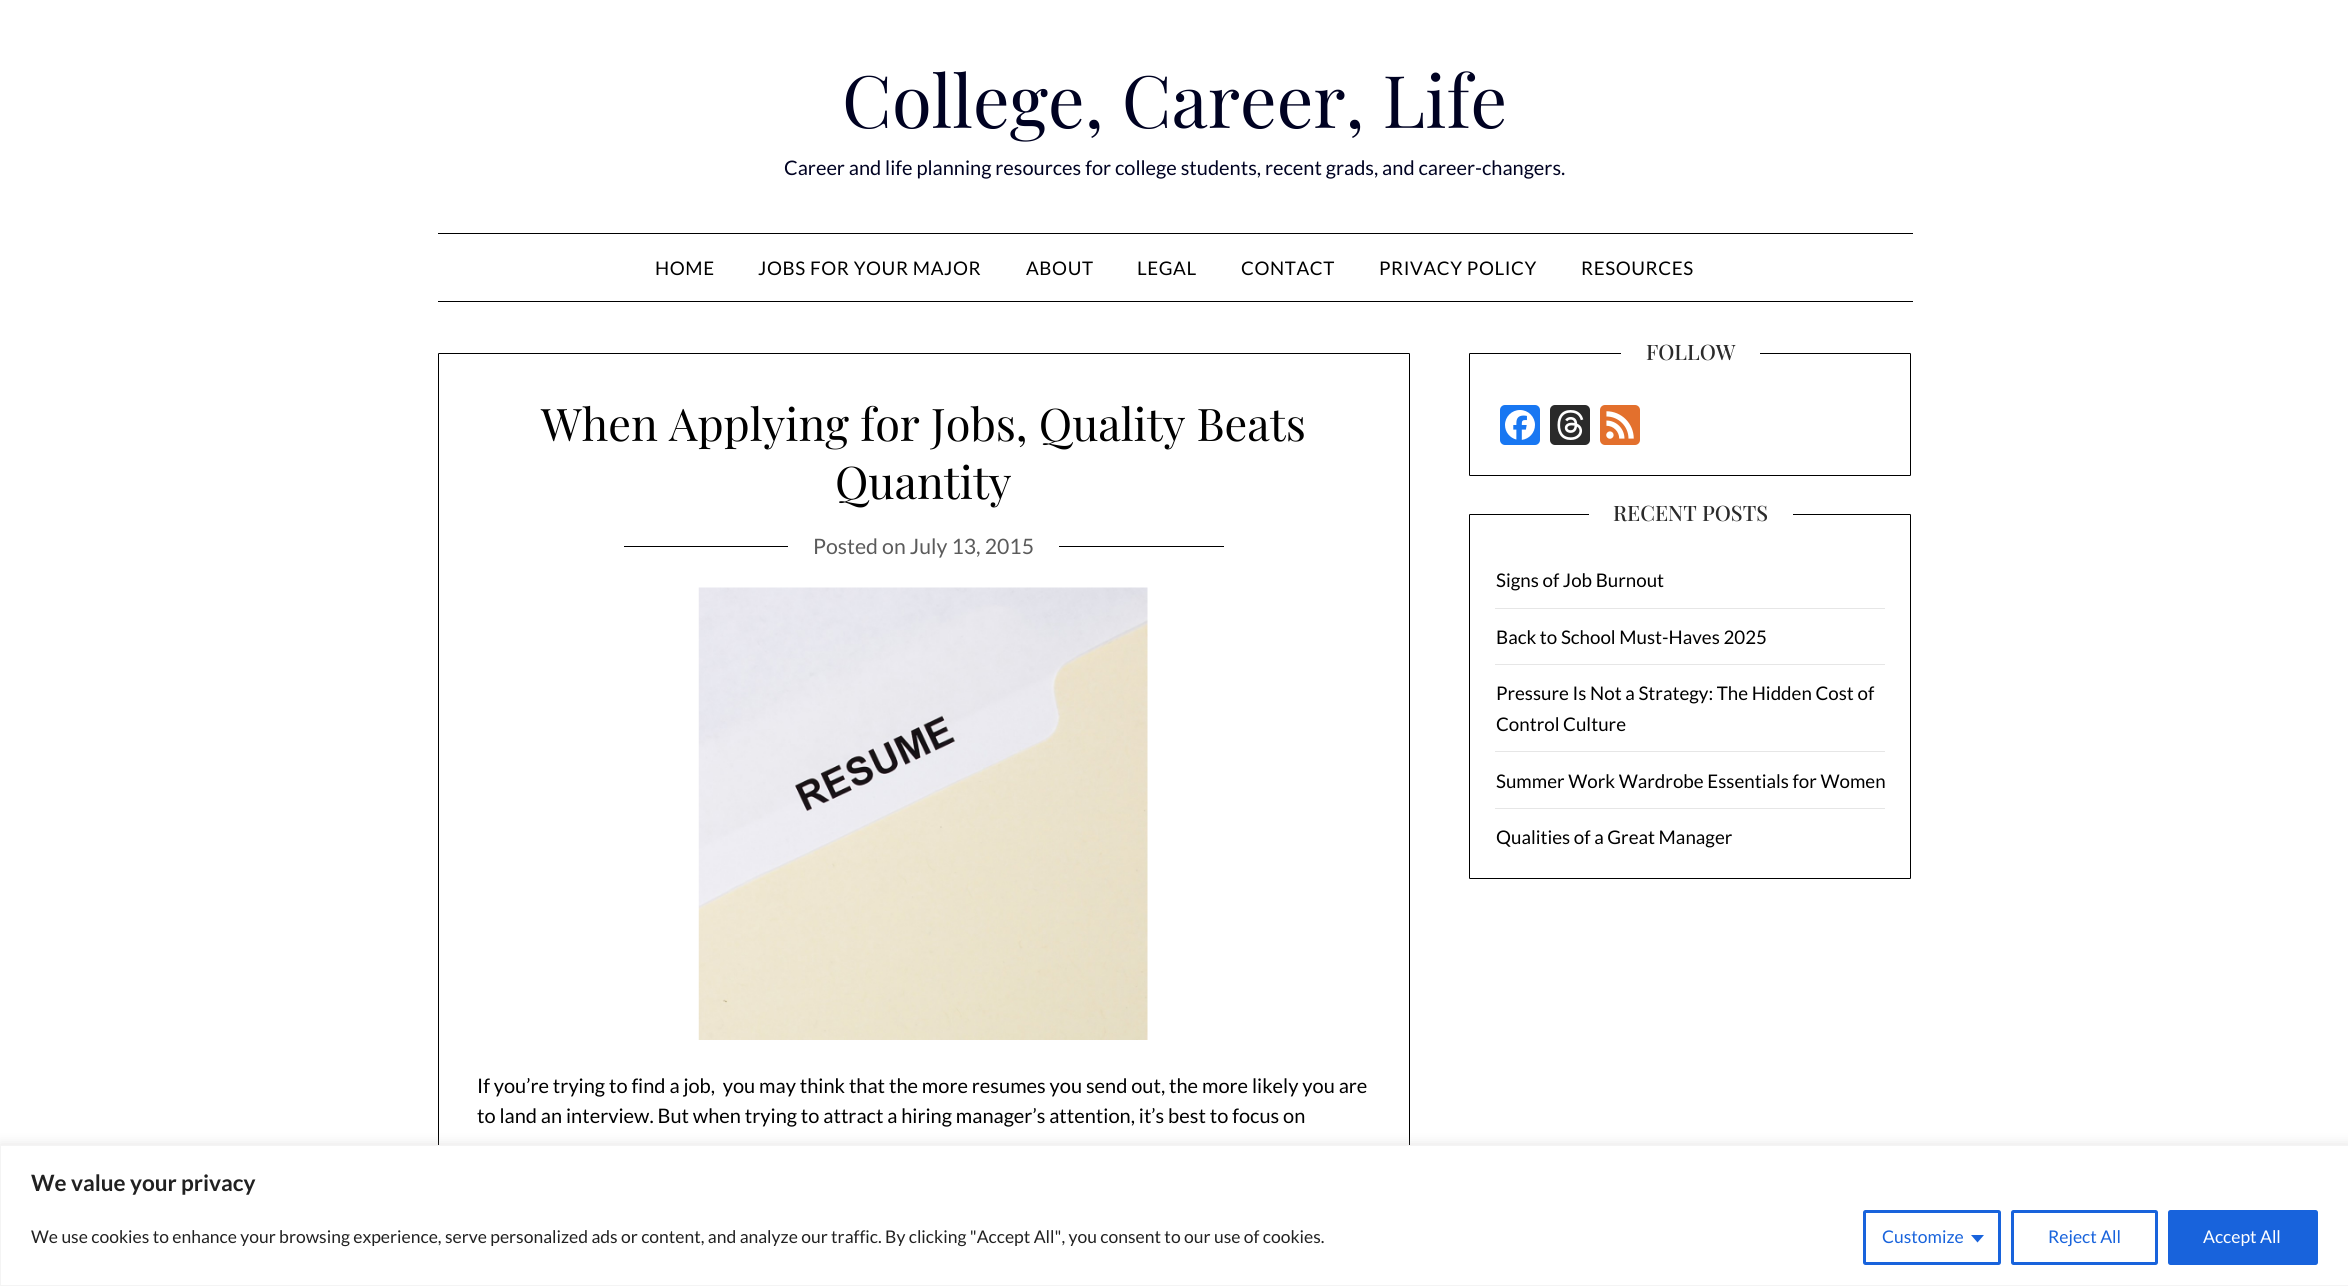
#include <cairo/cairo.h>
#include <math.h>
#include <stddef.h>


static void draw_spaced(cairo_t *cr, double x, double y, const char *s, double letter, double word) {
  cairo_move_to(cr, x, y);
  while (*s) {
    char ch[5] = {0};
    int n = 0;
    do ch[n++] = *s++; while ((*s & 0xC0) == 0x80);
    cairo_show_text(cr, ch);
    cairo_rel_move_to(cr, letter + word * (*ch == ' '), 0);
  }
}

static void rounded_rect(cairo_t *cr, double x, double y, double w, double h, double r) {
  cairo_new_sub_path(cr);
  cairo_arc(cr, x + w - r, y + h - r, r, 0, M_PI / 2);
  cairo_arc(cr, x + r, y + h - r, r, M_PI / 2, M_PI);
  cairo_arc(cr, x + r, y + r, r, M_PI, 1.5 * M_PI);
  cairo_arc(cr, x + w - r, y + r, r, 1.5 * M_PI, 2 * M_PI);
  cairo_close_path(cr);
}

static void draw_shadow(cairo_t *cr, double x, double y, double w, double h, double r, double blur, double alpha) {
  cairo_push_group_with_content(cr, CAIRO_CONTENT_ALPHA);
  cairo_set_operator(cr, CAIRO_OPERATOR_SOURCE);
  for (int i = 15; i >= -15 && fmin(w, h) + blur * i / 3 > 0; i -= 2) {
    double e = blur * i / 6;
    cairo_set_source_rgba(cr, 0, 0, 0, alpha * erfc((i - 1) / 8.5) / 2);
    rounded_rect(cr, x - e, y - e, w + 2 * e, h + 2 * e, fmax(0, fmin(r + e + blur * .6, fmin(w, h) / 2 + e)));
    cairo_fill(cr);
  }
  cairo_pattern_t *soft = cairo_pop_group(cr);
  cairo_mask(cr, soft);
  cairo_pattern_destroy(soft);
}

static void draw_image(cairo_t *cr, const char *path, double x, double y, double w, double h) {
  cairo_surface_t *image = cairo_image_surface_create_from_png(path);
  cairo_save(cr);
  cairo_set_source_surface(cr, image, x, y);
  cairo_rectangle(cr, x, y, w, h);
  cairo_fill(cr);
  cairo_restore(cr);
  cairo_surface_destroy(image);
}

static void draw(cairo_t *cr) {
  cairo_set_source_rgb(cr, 1, 1, 1);
  cairo_paint(cr);
  cairo_set_source_rgb(cr, 0, 0, 0);
  cairo_rectangle(cr, 438, 233, 1475, 1);
  cairo_fill(cr);
  cairo_rectangle(cr, 438, 301, 1475, 1);
  cairo_fill(cr);
  rounded_rect(cr, 438.5, 353.5, 971, 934, 0.5);
  cairo_set_line_width(cr, 1);
  cairo_stroke(cr);
  cairo_rectangle(cr, 624, 546, 600, 1);
  cairo_fill(cr);
  cairo_set_source_rgb(cr, 1, 1, 1);
  cairo_rectangle(cr, 788, 546, 271, 1);
  cairo_fill(cr);
  draw_image(cr, "images/1.png", 698, 587, 450, 453);
  rounded_rect(cr, 1469.5, 353.5, 441, 122, 0.5);
  cairo_set_source_rgb(cr, 0, 0, 0);
  cairo_stroke(cr);
  cairo_set_source_rgb(cr, 1, 1, 1);
  cairo_rectangle(cr, 1621, 353, 139, 1);
  cairo_fill(cr);
  cairo_set_source_rgb(cr, 24 / 255.0, 119 / 255.0, 242 / 255.0);
  rounded_rect(cr, 1500, 405, 40, 40, 5);
  cairo_fill(cr);
  draw_image(cr, "images/2.png", 1505, 410, 30, 30);
  cairo_set_source_rgb(cr, 42 / 255.0, 42 / 255.0, 42 / 255.0);
  rounded_rect(cr, 1550, 405, 40, 40, 5);
  cairo_fill(cr);
  draw_image(cr, "images/3.png", 1557, 410, 27, 30);
  cairo_set_source_rgb(cr, 227 / 255.0, 112 / 255.0, 45 / 255.0);
  rounded_rect(cr, 1600, 405, 40, 40, 5);
  cairo_fill(cr);
  draw_image(cr, "images/4.png", 1606, 411, 28, 28);
  rounded_rect(cr, 1469.5, 514.5, 441, 364, 0.5);
  cairo_set_source_rgb(cr, 0, 0, 0);
  cairo_stroke(cr);
  cairo_set_source_rgb(cr, 1, 1, 1);
  cairo_rectangle(cr, 1589, 514, 204, 1);
  cairo_fill(cr);
  cairo_set_source_rgb(cr, 230 / 255.0, 230 / 255.0, 230 / 255.0);
  cairo_rectangle(cr, 1495, 608, 390, 1);
  cairo_fill(cr);
  cairo_rectangle(cr, 1495, 664, 390, 1);
  cairo_fill(cr);
  cairo_rectangle(cr, 1495, 751, 390, 1);
  cairo_fill(cr);
  cairo_rectangle(cr, 1495, 808, 390, 1);
  cairo_fill(cr);
  cairo_set_source_rgb(cr, 172 / 255.0, 171 / 255.0, 171 / 255.0);
  draw_shadow(cr, 0, 1144, 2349, 141, 0, 6, 0.3);
  cairo_set_source_rgb(cr, 1, 1, 1);
  cairo_rectangle(cr, 0.5, 1145.5, 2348, 140);
  cairo_fill_preserve(cr);
  cairo_set_source_rgb(cr, 244 / 255.0, 244 / 255.0, 244 / 255.0);
  cairo_stroke(cr);
  rounded_rect(cr, 1864.5, 1211.5, 135, 52, 1);
  cairo_set_source_rgb(cr, 24 / 255.0, 99 / 255.0, 220 / 255.0);
  cairo_set_line_width(cr, 3);
  cairo_stroke(cr);
  cairo_new_path(cr);
  cairo_move_to(cr, 1971, 1235);
  cairo_line_to(cr, 1984, 1235);
  cairo_line_to(cr, 1977.5, 1242.5);
  cairo_close_path(cr);
  cairo_fill(cr);
  rounded_rect(cr, 2012.5, 1211.5, 144, 52, 1);
  cairo_stroke(cr);
  rounded_rect(cr, 2169.5, 1211.5, 147, 52, 1);
  cairo_fill_preserve(cr);
  cairo_stroke(cr);
  cairo_select_font_face(cr, "Playfair Display", CAIRO_FONT_SLANT_NORMAL, CAIRO_FONT_WEIGHT_NORMAL);
  cairo_set_font_size(cr, 72.5);
  cairo_set_source_rgb(cr, 0, 2 / 255.0, 34 / 255.0);
  cairo_move_to(cr, 842, 128);
  cairo_show_text(cr, "College, Career, Life");
  cairo_select_font_face(cr, "Lato", CAIRO_FONT_SLANT_NORMAL, CAIRO_FONT_WEIGHT_NORMAL);
  cairo_set_font_size(cr, 20);
  cairo_move_to(cr, 784, 175);
  cairo_show_text(cr, "Career and life planning resources for college students, recent grads, and career-changers.");
  cairo_set_font_size(cr, 18.75);
  cairo_set_source_rgb(cr, 0, 0, 0);
  draw_spaced(cr, 655, 275, "HOME", 0.6, 0);
  draw_spaced(cr, 758, 275, "JOBS FOR YOUR MAJOR", 0.6, 0);
  draw_spaced(cr, 1026, 275, "ABOUT", 0.6, 0);
  draw_spaced(cr, 1137, 275, "LEGAL", 0.6, 0);
  draw_spaced(cr, 1241, 275, "CONTACT", 0.6, 0);
  draw_spaced(cr, 1379, 275, "PRIVACY POLICY", 0.6, 0);
  draw_spaced(cr, 1581, 275, "RESOURCES", 0.6, 0);
  cairo_select_font_face(cr, "Playfair Display", CAIRO_FONT_SLANT_NORMAL, CAIRO_FONT_WEIGHT_NORMAL);
  cairo_set_font_size(cr, 45);
  cairo_move_to(cr, 541, 441);
  cairo_show_text(cr, "When Applying for Jobs, Quality Beats");
  cairo_move_to(cr, 835, 499);
  cairo_show_text(cr, "Quantity");
  cairo_select_font_face(cr, "Lato", CAIRO_FONT_SLANT_NORMAL, CAIRO_FONT_WEIGHT_NORMAL);
  cairo_set_font_size(cr, 21.25);
  cairo_set_source_rgb(cr, 91 / 255.0, 91 / 255.0, 91 / 255.0);
  cairo_move_to(cr, 813, 554);
  cairo_show_text(cr, "Posted on July 13, 2015");
  cairo_set_font_size(cr, 20);
  cairo_set_source_rgb(cr, 0, 0, 0);
  cairo_move_to(cr, 477, 1093);
  cairo_show_text(cr, "If you’re trying to find a job,  you may think that the more resumes you send out, the more likely you are");
  cairo_move_to(cr, 477, 1123);
  cairo_show_text(cr, "to land an interview. But when trying to attract a hiring manager’s attention, it’s best to focus on");
  cairo_select_font_face(cr, "Playfair Display Medium", CAIRO_FONT_SLANT_NORMAL, CAIRO_FONT_WEIGHT_NORMAL);
  cairo_set_font_size(cr, 21.25);
  cairo_set_source_rgb(cr, 43 / 255.0, 43 / 255.0, 43 / 255.0);
  cairo_move_to(cr, 1646, 360);
  cairo_show_text(cr, "FOLLOW");
  cairo_move_to(cr, 1613, 521);
  cairo_show_text(cr, "RECENT POSTS");
  cairo_select_font_face(cr, "Lato", CAIRO_FONT_SLANT_NORMAL, CAIRO_FONT_WEIGHT_NORMAL);
  cairo_set_font_size(cr, 18.75);
  cairo_set_source_rgb(cr, 0, 0, 0);
  cairo_move_to(cr, 1496, 587);
  cairo_show_text(cr, "Signs of Job Burnout");
  cairo_move_to(cr, 1496, 644);
  cairo_show_text(cr, "Back to School Must-Haves 2025");
  cairo_move_to(cr, 1496, 700);
  cairo_show_text(cr, "Pressure Is Not a Strategy: The Hidden Cost of");
  cairo_move_to(cr, 1496, 731);
  cairo_show_text(cr, "Control Culture");
  cairo_move_to(cr, 1496, 788);
  cairo_show_text(cr, "Summer Work Wardrobe Essentials for Women");
  cairo_move_to(cr, 1496, 844);
  cairo_show_text(cr, "Qualities of a Great Manager");
  cairo_select_font_face(cr, "Lato", CAIRO_FONT_SLANT_NORMAL, CAIRO_FONT_WEIGHT_BOLD);
  cairo_set_font_size(cr, 22.5);
  cairo_set_source_rgb(cr, 33 / 255.0, 33 / 255.0, 33 / 255.0);
  cairo_move_to(cr, 31, 1191);
  cairo_show_text(cr, "We value your privacy");
  cairo_select_font_face(cr, "Lato", CAIRO_FONT_SLANT_NORMAL, CAIRO_FONT_WEIGHT_NORMAL);
  cairo_set_font_size(cr, 17.5);
  cairo_move_to(cr, 31, 1243);
  cairo_show_text(cr, "We use cookies to enhance your browsing experience, serve personalized ads or content, and analyze our traffic. By clicking \"Accept All\", you consent to our use of cookies.");
  cairo_set_source_rgb(cr, 24 / 255.0, 99 / 255.0, 220 / 255.0);
  cairo_move_to(cr, 1882, 1243);
  cairo_show_text(cr, "Customize");
  cairo_move_to(cr, 2048, 1243);
  cairo_show_text(cr, "Reject All");
  cairo_set_source_rgb(cr, 1, 1, 1);
  cairo_move_to(cr, 2203, 1243);
  cairo_show_text(cr, "Accept All");
}

int main(void) {
  cairo_surface_t *surface = cairo_image_surface_create(CAIRO_FORMAT_RGB24, 2348, 1286);
  cairo_t *cr = cairo_create(surface);
  cairo_font_options_t *options = cairo_font_options_create();
  cairo_font_options_set_hint_metrics(options, CAIRO_HINT_METRICS_OFF);
  cairo_font_options_set_hint_style(options, CAIRO_HINT_STYLE_NONE);
  cairo_set_font_options(cr, options);
  cairo_set_miter_limit(cr, 4);
  draw(cr);
  cairo_surface_write_to_png(surface, "out.png");
  cairo_font_options_destroy(options);
  cairo_destroy(cr);
  cairo_surface_destroy(surface);
  return 0;
}
